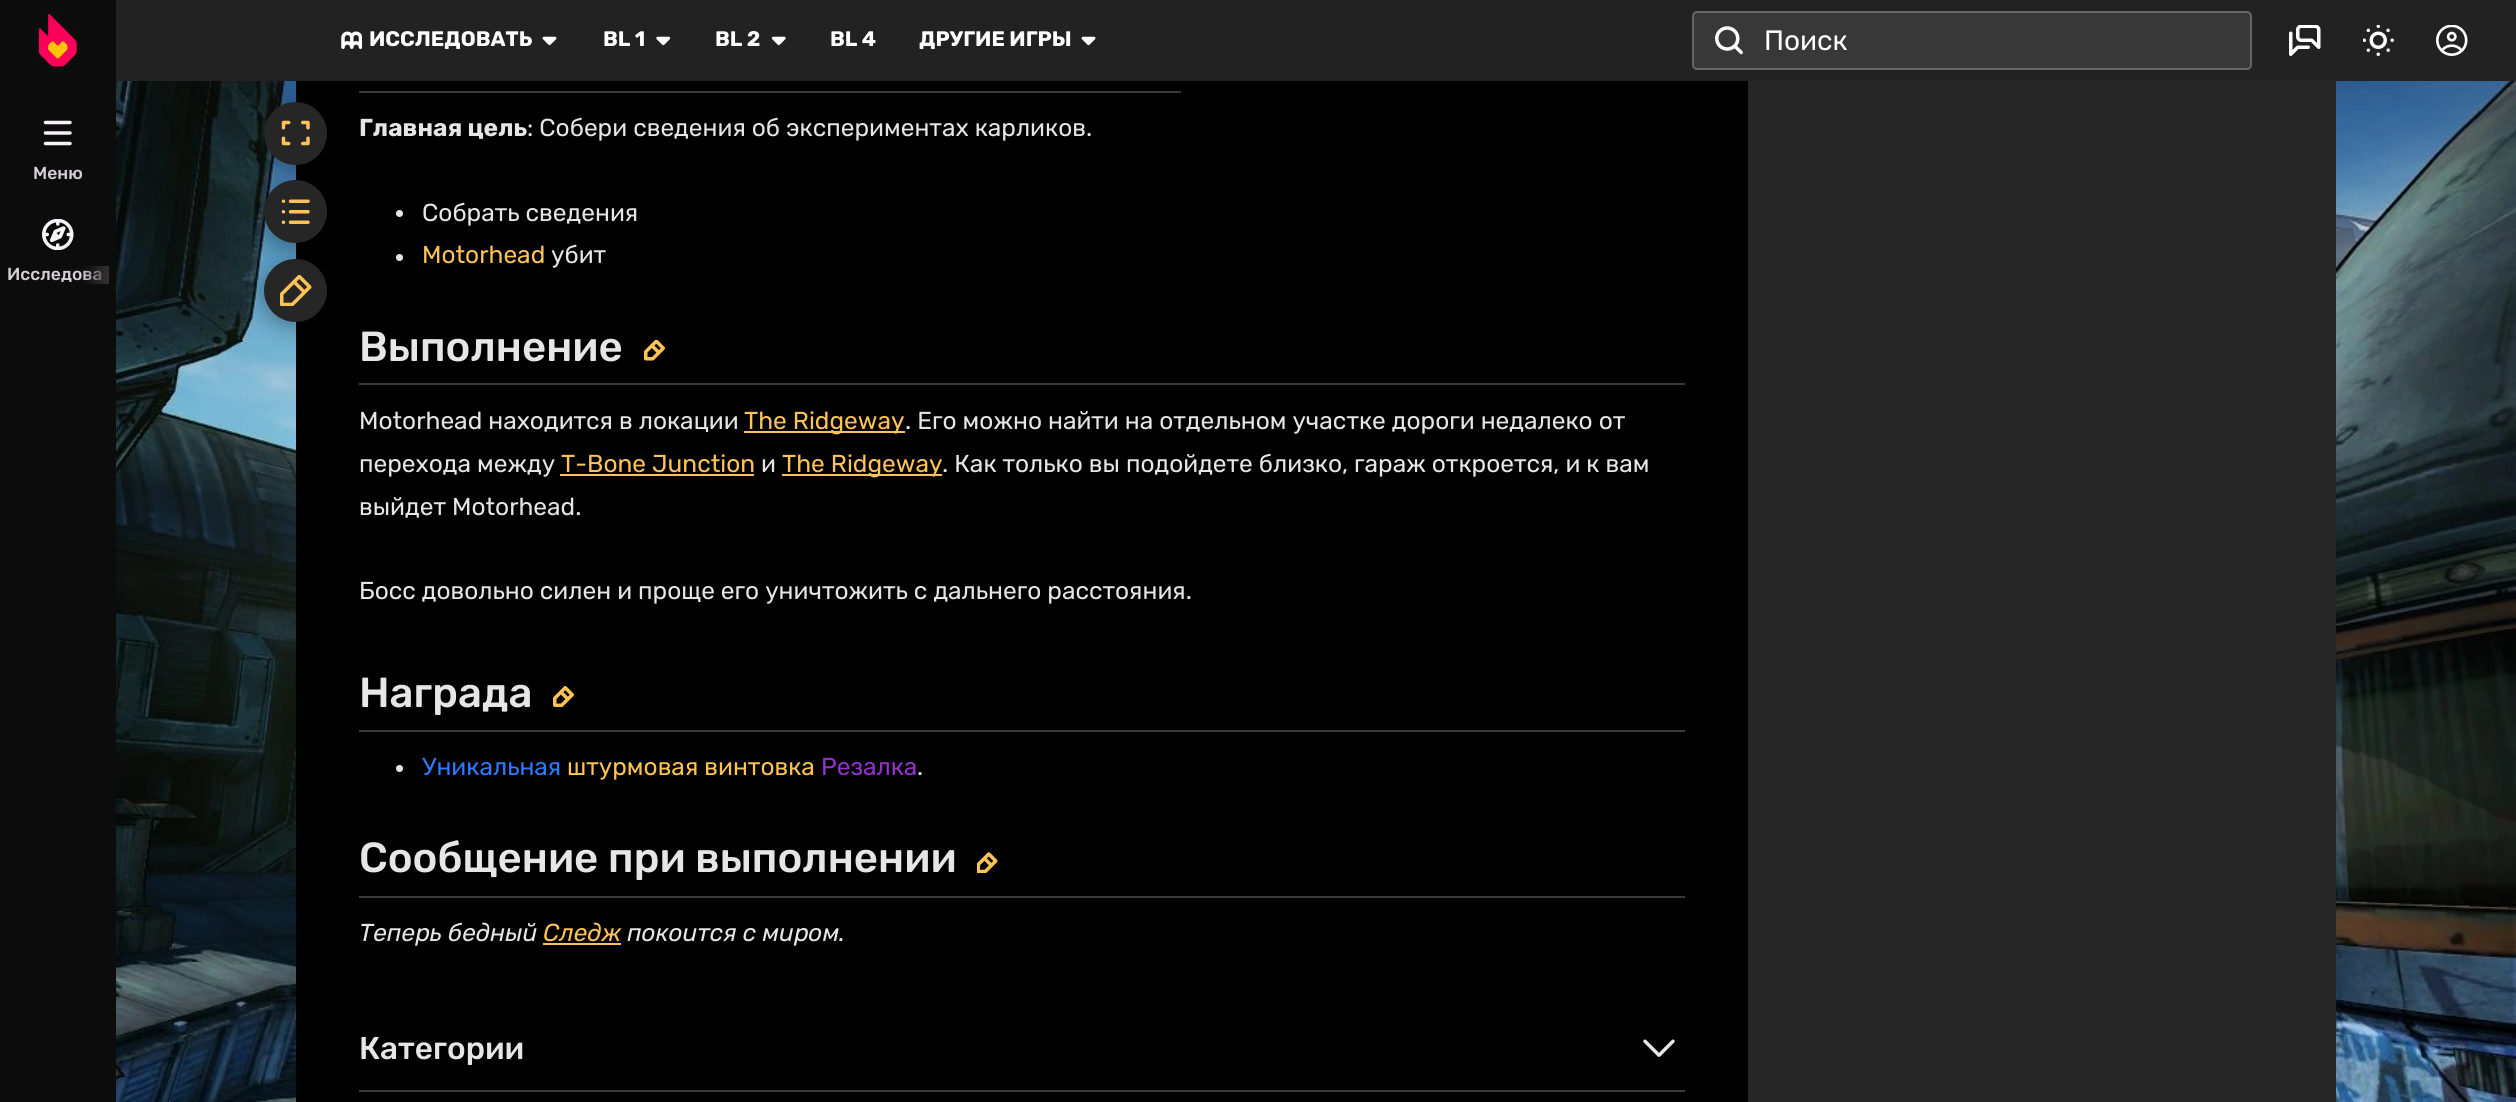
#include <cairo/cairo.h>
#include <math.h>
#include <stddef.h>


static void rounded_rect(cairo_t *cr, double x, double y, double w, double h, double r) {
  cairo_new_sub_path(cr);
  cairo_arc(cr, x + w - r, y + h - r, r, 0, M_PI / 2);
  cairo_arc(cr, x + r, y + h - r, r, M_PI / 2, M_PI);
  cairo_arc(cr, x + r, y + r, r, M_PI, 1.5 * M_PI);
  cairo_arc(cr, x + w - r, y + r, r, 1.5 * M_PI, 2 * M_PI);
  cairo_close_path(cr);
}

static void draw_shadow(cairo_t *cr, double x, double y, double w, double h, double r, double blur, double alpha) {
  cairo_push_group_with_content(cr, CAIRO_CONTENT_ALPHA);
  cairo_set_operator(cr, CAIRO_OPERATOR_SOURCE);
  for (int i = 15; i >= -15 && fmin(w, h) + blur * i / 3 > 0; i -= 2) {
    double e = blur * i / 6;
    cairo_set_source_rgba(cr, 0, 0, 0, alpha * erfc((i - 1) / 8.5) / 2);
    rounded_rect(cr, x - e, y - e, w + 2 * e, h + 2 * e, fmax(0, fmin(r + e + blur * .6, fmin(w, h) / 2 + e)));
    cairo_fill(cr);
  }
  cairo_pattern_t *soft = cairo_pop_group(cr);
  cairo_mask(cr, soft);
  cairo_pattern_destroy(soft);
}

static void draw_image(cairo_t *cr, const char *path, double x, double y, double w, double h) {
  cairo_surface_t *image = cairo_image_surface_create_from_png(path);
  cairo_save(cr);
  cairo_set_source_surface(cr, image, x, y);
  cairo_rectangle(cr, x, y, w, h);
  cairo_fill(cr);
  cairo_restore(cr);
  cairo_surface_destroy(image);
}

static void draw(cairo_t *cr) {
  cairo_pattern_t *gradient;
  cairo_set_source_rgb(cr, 1, 1, 1);
  cairo_paint(cr);
  draw_image(cr, "images/1.png", 116, 81, 2400, 1021);
  cairo_set_source_rgb(cr, 0, 0, 0);
  cairo_rectangle(cr, 296, 81, 1452, 1021);
  cairo_fill(cr);
  cairo_set_source_rgb(cr, 58 / 255.0, 58 / 255.0, 58 / 255.0);
  cairo_rectangle(cr, 359, 91, 822, 2);
  cairo_fill(cr);
  cairo_set_source_rgb(cr, 0, 0, 0);
  draw_shadow(cr, 264, 107, 63, 63, 31.5, 10.5, 0.3);
  cairo_set_source_rgb(cr, 34 / 255.0, 34 / 255.0, 34 / 255.0);
  cairo_rectangle(cr, 116, 0, 2400, 81);
  cairo_fill(cr);
  cairo_set_source_rgb(cr, 12 / 255.0, 12 / 255.0, 12 / 255.0);
  cairo_rectangle(cr, 0, 0, 116, 1102);
  cairo_fill(cr);
  draw_image(cr, "images/2.png", 38, 14, 39, 53);
  draw_image(cr, "images/3.png", 341, 31, 21, 18);
  draw_image(cr, "images/4.png", 542, 36, 15, 10);
  draw_image(cr, "images/5.png", 656, 36, 15, 10);
  draw_image(cr, "images/6.png", 771, 36, 15, 10);
  draw_image(cr, "images/4.png", 1081, 36, 15, 10);
  cairo_set_source_rgb(cr, 56 / 255.0, 56 / 255.0, 56 / 255.0);
  rounded_rect(cr, 1692, 11, 560, 59, 5);
  cairo_fill(cr);
  rounded_rect(cr, 1693, 12, 558, 57, 4);
  cairo_set_source_rgba(cr, 245 / 255.0, 243 / 255.0, 245 / 255.0, 0.25);
  cairo_stroke(cr);
  draw_image(cr, "images/7.png", 1715, 26, 28, 29);
  draw_image(cr, "images/8.png", 2289, 25, 32, 31);
  draw_image(cr, "images/9.png", 2363, 25, 31, 31);
  draw_image(cr, "images/10.png", 2436, 25, 32, 31);
  draw_image(cr, "images/11.png", 43, 120, 29, 26);
  draw_image(cr, "images/12.png", 42, 219, 32, 31);
  cairo_set_source_rgb(cr, 38 / 255.0, 38 / 255.0, 38 / 255.0);
  cairo_arc(cr, 295.5, 133.5, 31.5, 0, 2 * M_PI);
  cairo_fill(cr);
  draw_image(cr, "images/13.png", 281, 120, 29, 26);
  cairo_set_source_rgb(cr, 0, 0, 0);
  draw_shadow(cr, 264, 264, 63, 63, 31.5, 10.5, 0.3);
  cairo_set_source_rgb(cr, 38 / 255.0, 38 / 255.0, 38 / 255.0);
  cairo_arc(cr, 295.5, 290.5, 31.5, 0, 2 * M_PI);
  cairo_fill(cr);
  draw_image(cr, "images/15.png", 280, 275, 32, 31);
  cairo_set_source_rgb(cr, 0, 0, 0);
  draw_shadow(cr, 264, 186, 63, 63, 31.5, 10.5, 0.3);
  cairo_set_source_rgb(cr, 38 / 255.0, 38 / 255.0, 38 / 255.0);
  cairo_arc(cr, 295.5, 211.5, 31.5, 0, 2 * M_PI);
  cairo_fill(cr);
  draw_image(cr, "images/14.png", 281, 199, 29, 25);
  cairo_set_source_rgb(cr, 230 / 255.0, 230 / 255.0, 230 / 255.0);
  cairo_arc(cr, 399.5, 213.5, 3.5, 0, 2 * M_PI);
  cairo_fill(cr);
  cairo_arc(cr, 399.5, 257.5, 3.5, 0, 2 * M_PI);
  cairo_fill(cr);
  cairo_set_source_rgb(cr, 58 / 255.0, 58 / 255.0, 58 / 255.0);
  cairo_rectangle(cr, 359, 383, 1326, 2);
  cairo_fill(cr);
  draw_image(cr, "images/16.png", 644, 340, 21, 21);
  cairo_set_source_rgb(cr, 254 / 255.0, 195 / 255.0, 86 / 255.0);
  cairo_rectangle(cr, 744, 431, 161, 2);
  cairo_fill(cr);
  cairo_rectangle(cr, 560, 474, 194, 2);
  cairo_fill(cr);
  cairo_rectangle(cr, 782, 474, 160, 2);
  cairo_fill(cr);
  cairo_set_source_rgb(cr, 58 / 255.0, 58 / 255.0, 58 / 255.0);
  cairo_rectangle(cr, 359, 730, 1326, 2);
  cairo_fill(cr);
  draw_image(cr, "images/17.png", 553, 686, 21, 21);
  cairo_set_source_rgb(cr, 230 / 255.0, 230 / 255.0, 230 / 255.0);
  cairo_arc(cr, 399.5, 768.5, 3.5, 0, 2 * M_PI);
  cairo_fill(cr);
  cairo_set_source_rgb(cr, 58 / 255.0, 58 / 255.0, 58 / 255.0);
  cairo_rectangle(cr, 359, 896, 1326, 2);
  cairo_fill(cr);
  draw_image(cr, "images/18.png", 977, 852, 21, 21);
  cairo_set_source_rgb(cr, 254 / 255.0, 195 / 255.0, 86 / 255.0);
  cairo_rectangle(cr, 543, 943, 78, 2);
  cairo_fill(cr);
  cairo_set_source_rgb(cr, 58 / 255.0, 58 / 255.0, 58 / 255.0);
  cairo_rectangle(cr, 359, 1090, 1326, 2);
  cairo_fill(cr);
  draw_image(cr, "images/19.png", 1643, 1039, 32, 18);
  cairo_set_source_rgb(cr, 38 / 255.0, 38 / 255.0, 38 / 255.0);
  cairo_rectangle(cr, 1748, 81, 588, 1021);
  cairo_fill(cr);
  cairo_select_font_face(cr, "Rubik", CAIRO_FONT_SLANT_NORMAL, CAIRO_FONT_WEIGHT_BOLD);
  cairo_set_font_size(cr, 21);
  cairo_set_source_rgb(cr, 1, 1, 1);
  cairo_move_to(cr, 369, 46);
  cairo_show_text(cr, "ИССЛЕДОВАТЬ");
  cairo_move_to(cr, 603, 46);
  cairo_show_text(cr, "BL 1");
  cairo_move_to(cr, 715, 46);
  cairo_show_text(cr, "BL 2");
  cairo_move_to(cr, 830, 46);
  cairo_show_text(cr, "BL 4");
  cairo_move_to(cr, 919, 46);
  cairo_show_text(cr, "ДРУГИЕ ИГРЫ");
  cairo_select_font_face(cr, "Rubik", CAIRO_FONT_SLANT_NORMAL, CAIRO_FONT_WEIGHT_NORMAL);
  cairo_set_font_size(cr, 28);
  cairo_move_to(cr, 1764, 50);
  cairo_show_text(cr, "Поиск");
  cairo_select_font_face(cr, "Rubik Medium", CAIRO_FONT_SLANT_NORMAL, CAIRO_FONT_WEIGHT_NORMAL);
  cairo_set_font_size(cr, 17.5);
  cairo_set_source_rgb(cr, 214 / 255.0, 208 / 255.0, 213 / 255.0);
  cairo_move_to(cr, 33, 179);
  cairo_show_text(cr, "Меню");
  cairo_move_to(cr, 7, 280);
  cairo_show_text(cr, "Исследова");
  gradient = cairo_pattern_create_linear(82, 275, 109, 275);
  cairo_pattern_add_color_stop_rgba(gradient, 0, 52 / 255.0, 49 / 255.0, 51 / 255.0, 0);
  cairo_pattern_add_color_stop_rgba(gradient, 1, 52 / 255.0, 49 / 255.0, 51 / 255.0, 1);
  cairo_set_source(cr, gradient);
  cairo_pattern_destroy(gradient);
  cairo_rectangle(cr, 83, 266, 26, 18);
  cairo_fill(cr);
  cairo_select_font_face(cr, "Rubik", CAIRO_FONT_SLANT_NORMAL, CAIRO_FONT_WEIGHT_BOLD);
  cairo_set_font_size(cr, 24.5);
  cairo_set_source_rgb(cr, 230 / 255.0, 230 / 255.0, 230 / 255.0);
  cairo_move_to(cr, 359, 136);
  cairo_show_text(cr, "Главная цель");
  cairo_select_font_face(cr, "Rubik", CAIRO_FONT_SLANT_NORMAL, CAIRO_FONT_WEIGHT_NORMAL);
  cairo_move_to(cr, 527, 136);
  cairo_show_text(cr, ": Собери сведения об экспериментах карликов.");
  cairo_move_to(cr, 422, 221);
  cairo_show_text(cr, "Собрать сведения");
  cairo_set_source_rgb(cr, 254 / 255.0, 195 / 255.0, 86 / 255.0);
  cairo_move_to(cr, 422, 263);
  cairo_show_text(cr, "Motorhead");
  cairo_set_source_rgb(cr, 230 / 255.0, 230 / 255.0, 230 / 255.0);
  cairo_move_to(cr, 551, 263);
  cairo_show_text(cr, "убит");
  cairo_select_font_face(cr, "Rubik Medium", CAIRO_FONT_SLANT_NORMAL, CAIRO_FONT_WEIGHT_NORMAL);
  cairo_set_font_size(cr, 42);
  cairo_move_to(cr, 359, 361);
  cairo_show_text(cr, "Выполнение");
  cairo_select_font_face(cr, "Rubik", CAIRO_FONT_SLANT_NORMAL, CAIRO_FONT_WEIGHT_NORMAL);
  cairo_set_font_size(cr, 24.5);
  cairo_move_to(cr, 359, 429);
  cairo_show_text(cr, "Motorhead находится в локации");
  cairo_set_source_rgb(cr, 254 / 255.0, 195 / 255.0, 86 / 255.0);
  cairo_move_to(cr, 744, 429);
  cairo_show_text(cr, "The Ridgeway");
  cairo_set_source_rgb(cr, 230 / 255.0, 230 / 255.0, 230 / 255.0);
  cairo_move_to(cr, 905, 429);
  cairo_show_text(cr, ". Его можно найти на отдельном участке дороги недалеко от");
  cairo_move_to(cr, 359, 472);
  cairo_show_text(cr, "перехода между");
  cairo_set_source_rgb(cr, 254 / 255.0, 195 / 255.0, 86 / 255.0);
  cairo_move_to(cr, 561, 472);
  cairo_show_text(cr, "T-Bone Junction");
  cairo_set_source_rgb(cr, 230 / 255.0, 230 / 255.0, 230 / 255.0);
  cairo_move_to(cr, 761, 472);
  cairo_show_text(cr, "и");
  cairo_set_source_rgb(cr, 254 / 255.0, 195 / 255.0, 86 / 255.0);
  cairo_move_to(cr, 782, 472);
  cairo_show_text(cr, "The Ridgeway");
  cairo_set_source_rgb(cr, 230 / 255.0, 230 / 255.0, 230 / 255.0);
  cairo_move_to(cr, 942, 472);
  cairo_show_text(cr, ". Как только вы подойдете близко, гараж откроется, и к вам");
  cairo_move_to(cr, 359, 515);
  cairo_show_text(cr, "выйдет Motorhead.");
  cairo_move_to(cr, 359, 599);
  cairo_show_text(cr, "Босс довольно силен и проще его уничтожить с дальнего расстояния.");
  cairo_select_font_face(cr, "Rubik Medium", CAIRO_FONT_SLANT_NORMAL, CAIRO_FONT_WEIGHT_NORMAL);
  cairo_set_font_size(cr, 42);
  cairo_move_to(cr, 359, 707);
  cairo_show_text(cr, "Награда");
  cairo_select_font_face(cr, "Rubik", CAIRO_FONT_SLANT_NORMAL, CAIRO_FONT_WEIGHT_NORMAL);
  cairo_set_font_size(cr, 24.5);
  cairo_set_source_rgb(cr, 47 / 255.0, 120 / 255.0, 1);
  cairo_move_to(cr, 422, 775);
  cairo_show_text(cr, "Уникальная");
  cairo_set_source_rgb(cr, 254 / 255.0, 195 / 255.0, 86 / 255.0);
  cairo_move_to(cr, 567, 775);
  cairo_show_text(cr, "штурмовая винтовка");
  cairo_set_source_rgb(cr, 145 / 255.0, 50 / 255.0, 200 / 255.0);
  cairo_move_to(cr, 821, 775);
  cairo_show_text(cr, "Резалка");
  cairo_set_source_rgb(cr, 230 / 255.0, 230 / 255.0, 230 / 255.0);
  cairo_move_to(cr, 917, 775);
  cairo_show_text(cr, ".");
  cairo_select_font_face(cr, "Rubik Medium", CAIRO_FONT_SLANT_NORMAL, CAIRO_FONT_WEIGHT_NORMAL);
  cairo_set_font_size(cr, 42);
  cairo_move_to(cr, 359, 872);
  cairo_show_text(cr, "Сообщение при выполнении");
  cairo_select_font_face(cr, "Rubik", CAIRO_FONT_SLANT_ITALIC, CAIRO_FONT_WEIGHT_NORMAL);
  cairo_set_font_size(cr, 24.5);
  cairo_move_to(cr, 359, 941);
  cairo_show_text(cr, "Теперь бедный");
  cairo_set_source_rgb(cr, 254 / 255.0, 195 / 255.0, 86 / 255.0);
  cairo_move_to(cr, 543, 941);
  cairo_show_text(cr, "Следж");
  cairo_set_source_rgb(cr, 230 / 255.0, 230 / 255.0, 230 / 255.0);
  cairo_move_to(cr, 627, 941);
  cairo_show_text(cr, "покоится с миром.");
  cairo_select_font_face(cr, "Rubik Medium", CAIRO_FONT_SLANT_NORMAL, CAIRO_FONT_WEIGHT_NORMAL);
  cairo_set_font_size(cr, 31.5);
  cairo_move_to(cr, 359, 1059);
  cairo_show_text(cr, "Категории");
}

int main(void) {
  cairo_surface_t *surface = cairo_image_surface_create(CAIRO_FORMAT_RGB24, 2516, 1102);
  cairo_t *cr = cairo_create(surface);
  cairo_font_options_t *options = cairo_font_options_create();
  cairo_font_options_set_hint_metrics(options, CAIRO_HINT_METRICS_OFF);
  cairo_font_options_set_hint_style(options, CAIRO_HINT_STYLE_NONE);
  cairo_set_font_options(cr, options);
  cairo_set_miter_limit(cr, 4);
  draw(cr);
  cairo_surface_write_to_png(surface, "out.png");
  cairo_font_options_destroy(options);
  cairo_destroy(cr);
  cairo_surface_destroy(surface);
  return 0;
}
